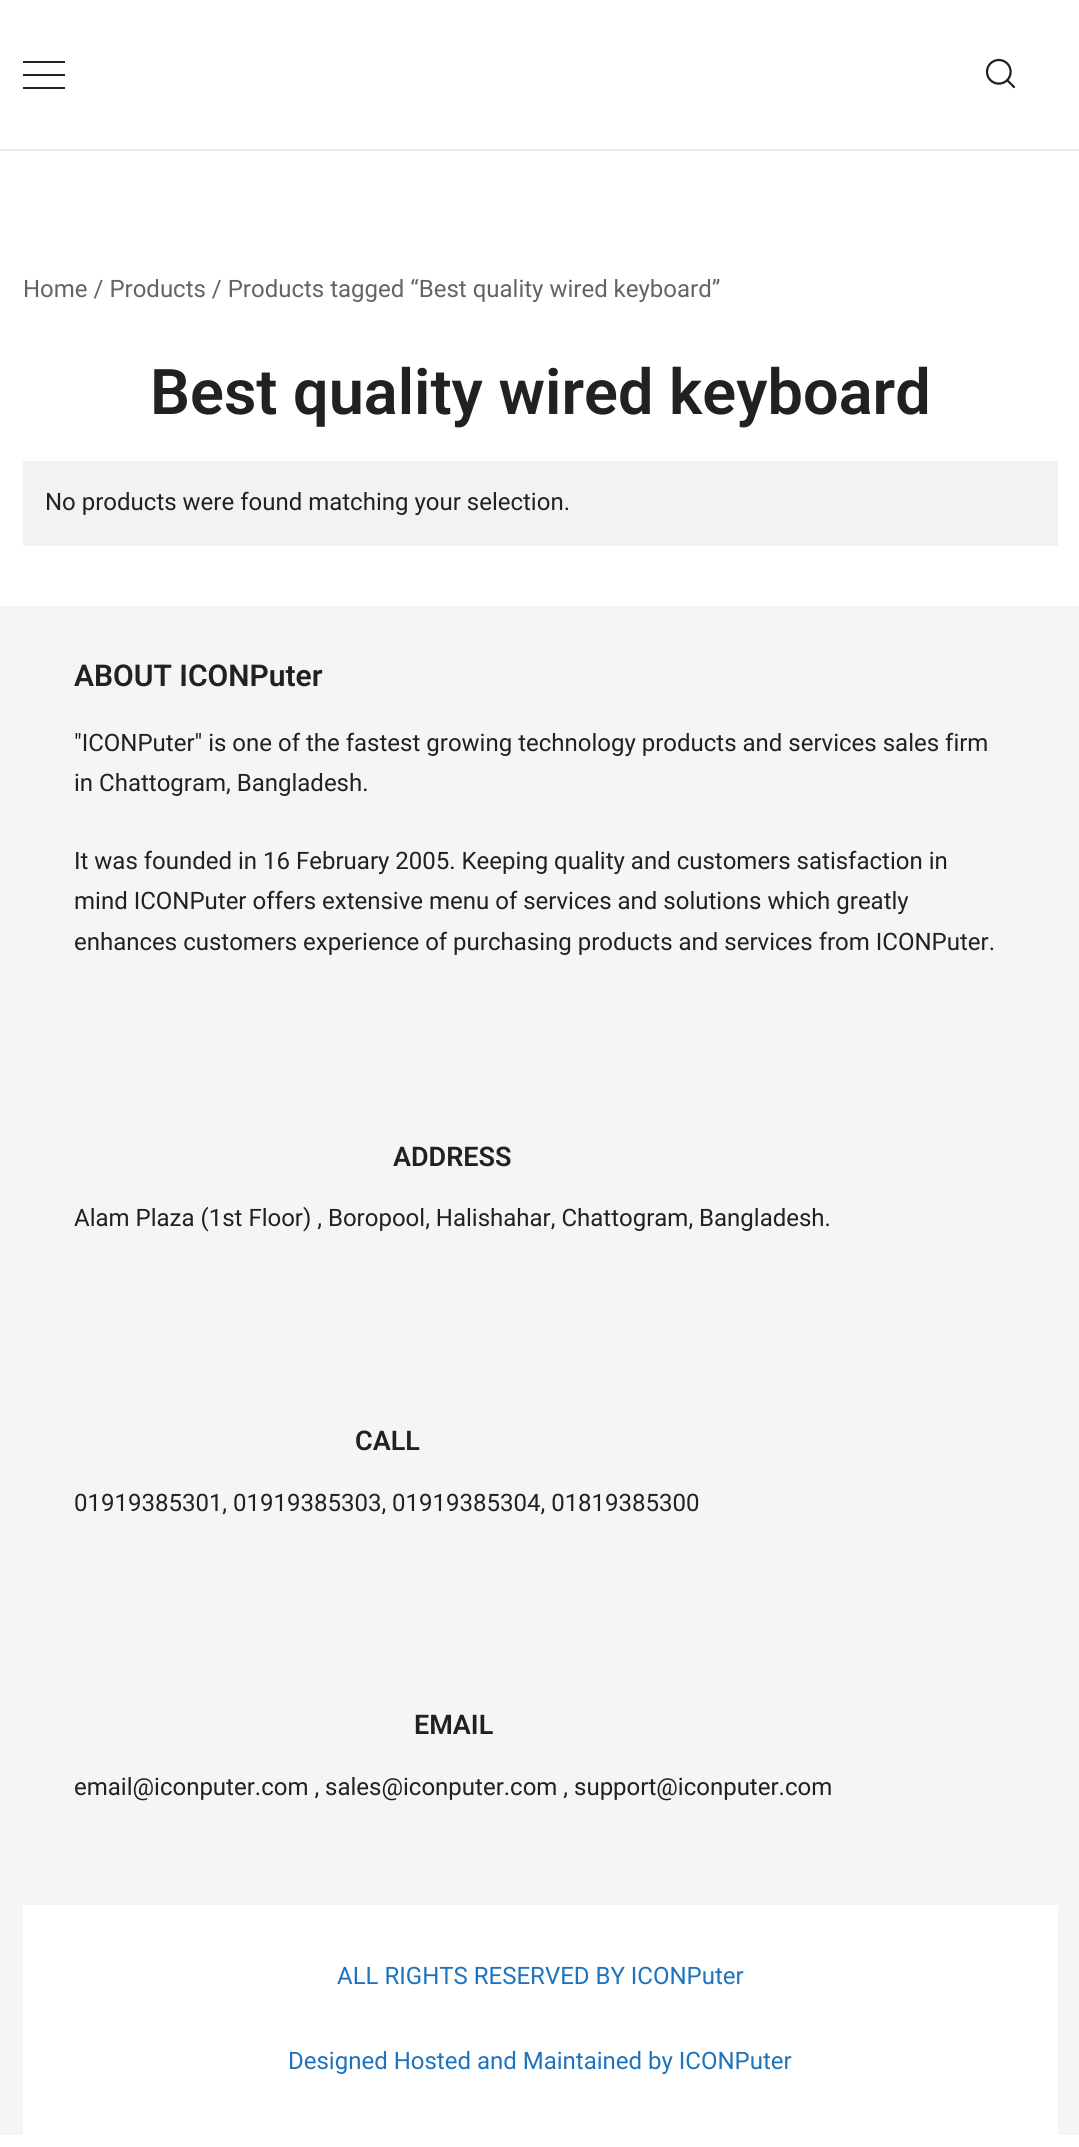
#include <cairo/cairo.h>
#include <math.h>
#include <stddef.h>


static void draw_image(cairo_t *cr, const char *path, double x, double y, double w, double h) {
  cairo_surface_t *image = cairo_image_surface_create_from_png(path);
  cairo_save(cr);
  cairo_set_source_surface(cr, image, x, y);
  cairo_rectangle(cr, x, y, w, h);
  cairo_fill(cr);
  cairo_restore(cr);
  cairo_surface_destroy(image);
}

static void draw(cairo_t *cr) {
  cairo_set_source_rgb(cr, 1, 1, 1);
  cairo_paint(cr);
  cairo_set_source_rgb(cr, 234 / 255.0, 234 / 255.0, 234 / 255.0);
  cairo_rectangle(cr, 0, 149, 1079, 2);
  cairo_fill(cr);
  cairo_set_source_rgb(cr, 33 / 255.0, 33 / 255.0, 33 / 255.0);
  cairo_rectangle(cr, 23, 61, 42, 2);
  cairo_fill(cr);
  cairo_rectangle(cr, 23, 74, 42, 2);
  cairo_fill(cr);
  cairo_rectangle(cr, 23, 87, 42, 2);
  cairo_fill(cr);
  draw_image(cr, "images/1.png", 985, 58, 31, 31);
  cairo_set_source_rgb(cr, 242 / 255.0, 242 / 255.0, 242 / 255.0);
  cairo_rectangle(cr, 23, 461, 1035, 85);
  cairo_fill(cr);
  cairo_set_source_rgb(cr, 245 / 255.0, 245 / 255.0, 245 / 255.0);
  cairo_rectangle(cr, 0, 606, 1079, 1529);
  cairo_fill(cr);
  cairo_set_source_rgb(cr, 1, 1, 1);
  cairo_rectangle(cr, 23, 1905, 1035, 230);
  cairo_fill(cr);
  cairo_select_font_face(cr, "Roboto", CAIRO_FONT_SLANT_NORMAL, CAIRO_FONT_WEIGHT_NORMAL);
  cairo_set_font_size(cr, 24);
  cairo_set_source_rgb(cr, 100 / 255.0, 100 / 255.0, 100 / 255.0);
  cairo_move_to(cr, 23, 297);
  cairo_show_text(cr, "Home / Products / Products tagged “Best quality wired keyboard”");
  cairo_select_font_face(cr, "Roboto SemiBold", CAIRO_FONT_SLANT_NORMAL, CAIRO_FONT_WEIGHT_NORMAL);
  cairo_set_font_size(cr, 63);
  cairo_set_source_rgb(cr, 33 / 255.0, 33 / 255.0, 33 / 255.0);
  cairo_move_to(cr, 150, 414);
  cairo_show_text(cr, "Best quality wired keyboard");
  cairo_select_font_face(cr, "Roboto", CAIRO_FONT_SLANT_NORMAL, CAIRO_FONT_WEIGHT_NORMAL);
  cairo_set_font_size(cr, 24);
  cairo_move_to(cr, 45, 510);
  cairo_show_text(cr, "No products were found matching your selection.");
  cairo_select_font_face(cr, "Roboto SemiBold", CAIRO_FONT_SLANT_NORMAL, CAIRO_FONT_WEIGHT_NORMAL);
  cairo_set_font_size(cr, 30);
  cairo_move_to(cr, 74, 686);
  cairo_show_text(cr, "ABOUT ICONPuter");
  cairo_select_font_face(cr, "Roboto", CAIRO_FONT_SLANT_NORMAL, CAIRO_FONT_WEIGHT_NORMAL);
  cairo_set_font_size(cr, 24);
  cairo_move_to(cr, 74, 751);
  cairo_show_text(cr, "\"ICONPuter\" is one of the fastest growing technology products and services sales firm");
  cairo_move_to(cr, 74, 791);
  cairo_show_text(cr, "in Chattogram, Bangladesh.");
  cairo_move_to(cr, 74, 869);
  cairo_show_text(cr, "It was founded in 16 February 2005. Keeping quality and customers satisfaction in");
  cairo_move_to(cr, 74, 909);
  cairo_show_text(cr, "mind ICONPuter offers extensive menu of services and solutions which greatly");
  cairo_move_to(cr, 74, 950);
  cairo_show_text(cr, "enhances customers experience of purchasing products and services from ICONPuter.");
  cairo_select_font_face(cr, "Roboto SemiBold", CAIRO_FONT_SLANT_NORMAL, CAIRO_FONT_WEIGHT_NORMAL);
  cairo_set_font_size(cr, 27);
  cairo_move_to(cr, 393, 1166);
  cairo_show_text(cr, "ADDRESS");
  cairo_select_font_face(cr, "Roboto", CAIRO_FONT_SLANT_NORMAL, CAIRO_FONT_WEIGHT_NORMAL);
  cairo_set_font_size(cr, 24);
  cairo_move_to(cr, 74, 1226);
  cairo_show_text(cr, "Alam Plaza (1st Floor) , Boropool, Halishahar, Chattogram, Bangladesh.");
  cairo_select_font_face(cr, "Roboto SemiBold", CAIRO_FONT_SLANT_NORMAL, CAIRO_FONT_WEIGHT_NORMAL);
  cairo_set_font_size(cr, 27);
  cairo_move_to(cr, 355, 1450);
  cairo_show_text(cr, "CALL");
  cairo_select_font_face(cr, "Roboto", CAIRO_FONT_SLANT_NORMAL, CAIRO_FONT_WEIGHT_NORMAL);
  cairo_set_font_size(cr, 24);
  cairo_move_to(cr, 74, 1511);
  cairo_show_text(cr, "01919385301, 01919385303, 01919385304, 01819385300");
  cairo_select_font_face(cr, "Roboto SemiBold", CAIRO_FONT_SLANT_NORMAL, CAIRO_FONT_WEIGHT_NORMAL);
  cairo_set_font_size(cr, 27);
  cairo_move_to(cr, 414, 1734);
  cairo_show_text(cr, "EMAIL");
  cairo_select_font_face(cr, "Roboto", CAIRO_FONT_SLANT_NORMAL, CAIRO_FONT_WEIGHT_NORMAL);
  cairo_set_font_size(cr, 24);
  cairo_move_to(cr, 74, 1795);
  cairo_show_text(cr, "email@iconputer.com , sales@iconputer.com , support@iconputer.com");
  cairo_set_source_rgb(cr, 30 / 255.0, 115 / 255.0, 190 / 255.0);
  cairo_move_to(cr, 337, 1984);
  cairo_show_text(cr, "ALL RIGHTS RESERVED BY ICONPuter");
  cairo_move_to(cr, 288, 2069);
  cairo_show_text(cr, "Designed Hosted and Maintained by ICONPuter");
}

int main(void) {
  cairo_surface_t *surface = cairo_image_surface_create(CAIRO_FORMAT_RGB24, 1079, 2147);
  cairo_t *cr = cairo_create(surface);
  cairo_font_options_t *options = cairo_font_options_create();
  cairo_font_options_set_hint_metrics(options, CAIRO_HINT_METRICS_OFF);
  cairo_font_options_set_hint_style(options, CAIRO_HINT_STYLE_NONE);
  cairo_set_font_options(cr, options);
  cairo_set_miter_limit(cr, 4);
  draw(cr);
  cairo_surface_write_to_png(surface, "out.png");
  cairo_font_options_destroy(options);
  cairo_destroy(cr);
  cairo_surface_destroy(surface);
  return 0;
}
